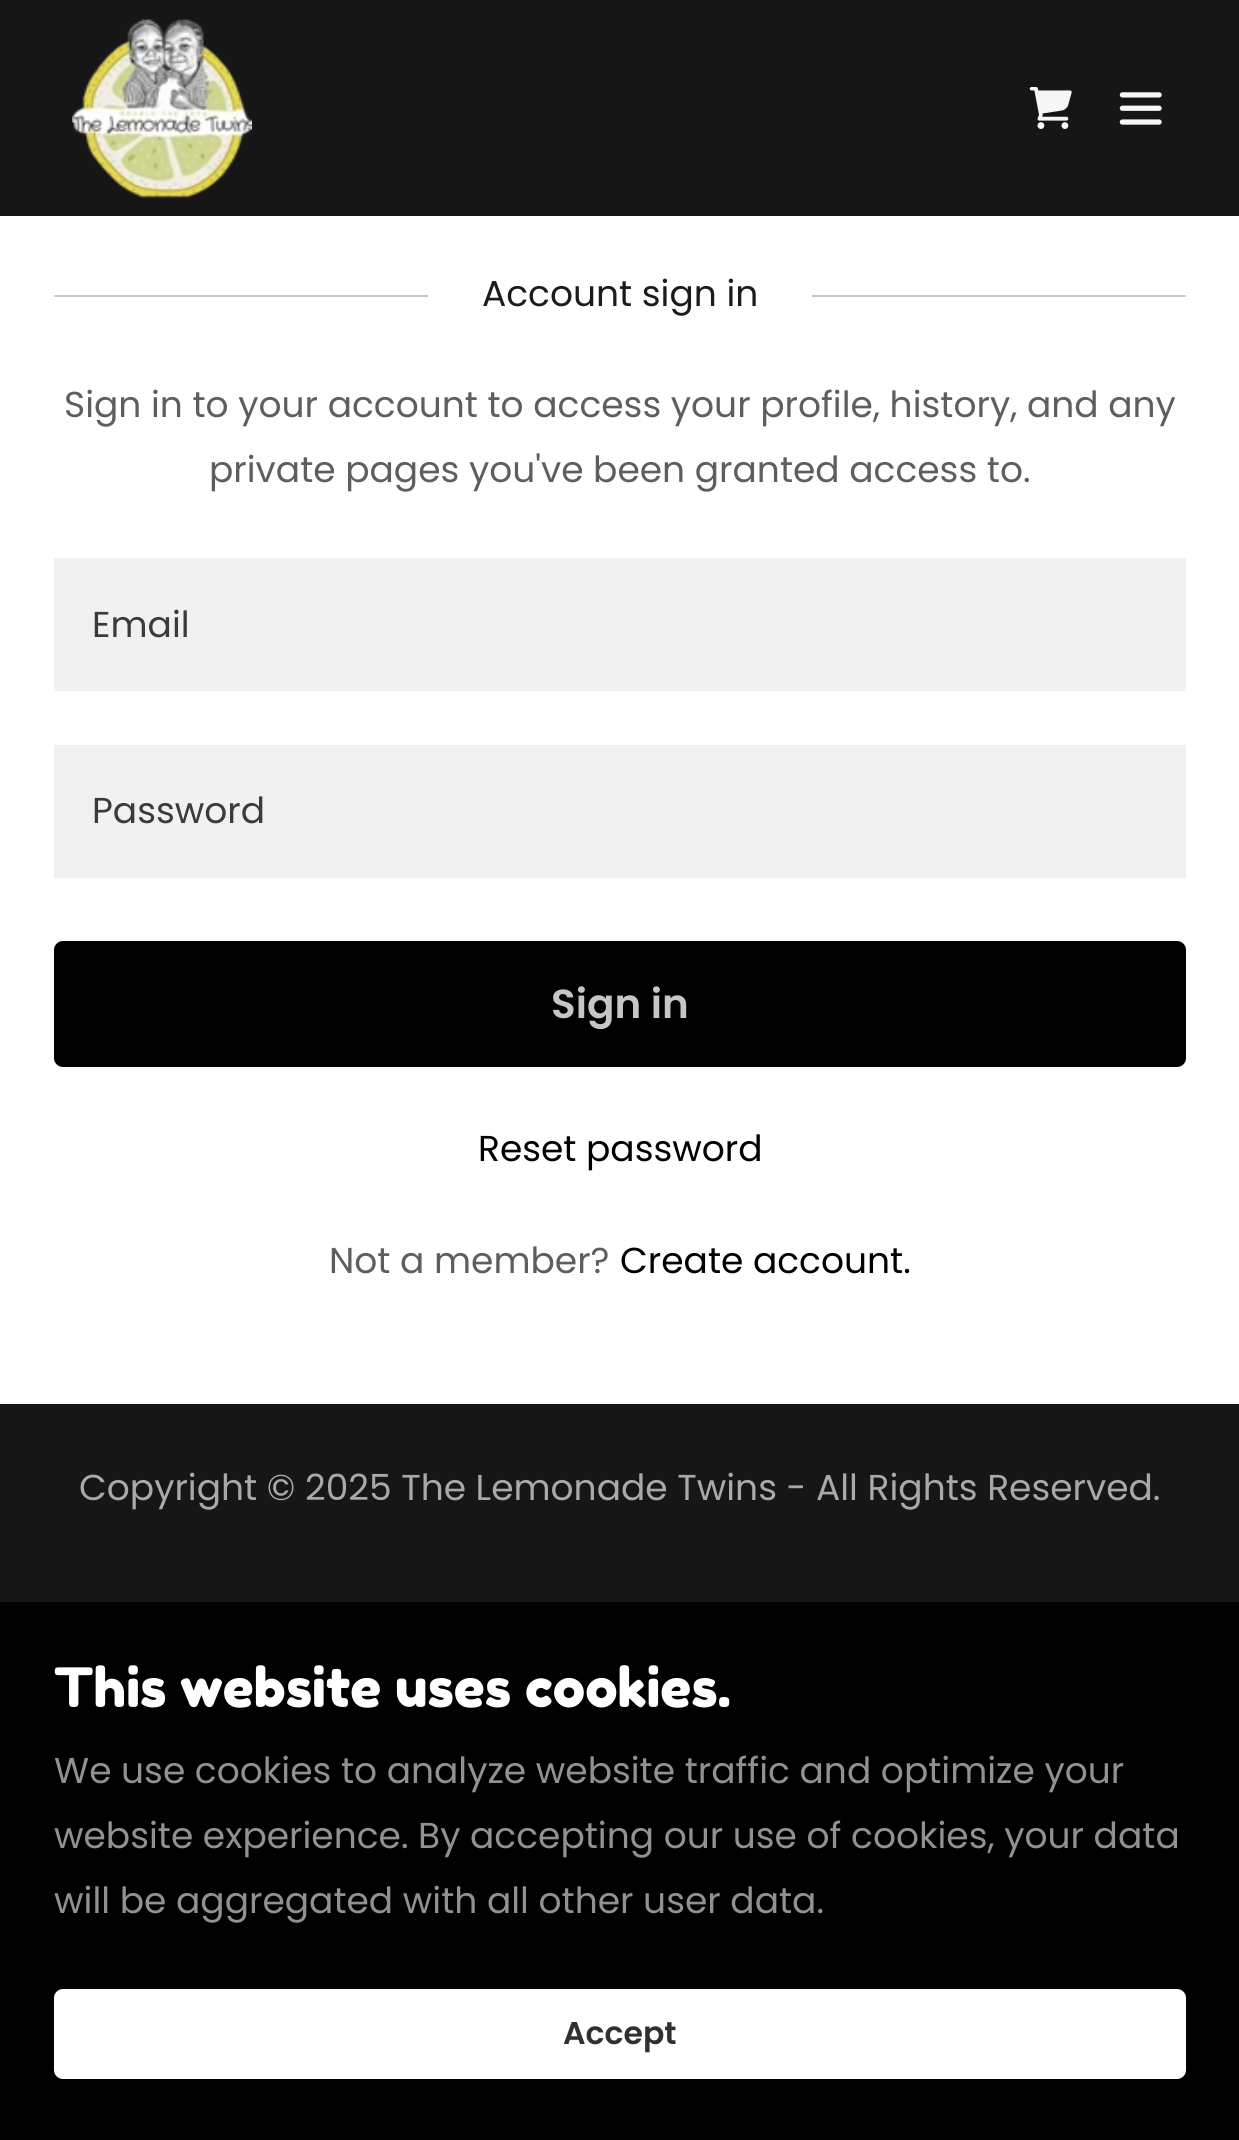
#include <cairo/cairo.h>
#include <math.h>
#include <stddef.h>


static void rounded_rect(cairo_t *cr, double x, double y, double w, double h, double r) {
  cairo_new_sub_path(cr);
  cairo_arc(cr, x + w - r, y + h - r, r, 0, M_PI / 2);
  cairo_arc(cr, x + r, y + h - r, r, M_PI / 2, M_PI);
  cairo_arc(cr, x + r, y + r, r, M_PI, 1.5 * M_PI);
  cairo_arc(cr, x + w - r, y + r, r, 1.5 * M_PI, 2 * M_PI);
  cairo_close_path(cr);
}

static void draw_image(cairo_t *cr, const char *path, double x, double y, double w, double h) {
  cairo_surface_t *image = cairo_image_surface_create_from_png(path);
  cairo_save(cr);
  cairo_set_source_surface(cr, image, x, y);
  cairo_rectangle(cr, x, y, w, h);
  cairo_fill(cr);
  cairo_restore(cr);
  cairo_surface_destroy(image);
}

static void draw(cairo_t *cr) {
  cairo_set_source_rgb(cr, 22 / 255.0, 22 / 255.0, 22 / 255.0);
  cairo_paint(cr);
  draw_image(cr, "images/1.png", 72, 19, 180, 179);
  draw_image(cr, "images/2.png", 1029, 87, 43, 42);
  draw_image(cr, "images/3.png", 1119, 92, 43, 33);
  cairo_set_source_rgb(cr, 1, 1, 1);
  cairo_rectangle(cr, 0, 216, 1239, 1188);
  cairo_fill(cr);
  cairo_set_source_rgb(cr, 198 / 255.0, 198 / 255.0, 198 / 255.0);
  cairo_rectangle(cr, 54, 295, 374, 2);
  cairo_fill(cr);
  cairo_rectangle(cr, 812, 295, 374, 2);
  cairo_fill(cr);
  cairo_set_source_rgb(cr, 241 / 255.0, 241 / 255.0, 241 / 255.0);
  cairo_rectangle(cr, 54, 558, 1132, 133);
  cairo_fill(cr);
  cairo_rectangle(cr, 54, 745, 1132, 133);
  cairo_fill(cr);
  cairo_set_source_rgb(cr, 0, 0, 0);
  rounded_rect(cr, 54, 941, 1132, 126, 9);
  cairo_fill(cr);
  cairo_rectangle(cr, 0, 1602, 1239, 538);
  cairo_fill(cr);
  cairo_set_source_rgb(cr, 1, 1, 1);
  rounded_rect(cr, 54, 1989, 1132, 90, 9);
  cairo_fill(cr);
  cairo_select_font_face(cr, "Poppins", CAIRO_FONT_SLANT_NORMAL, CAIRO_FONT_WEIGHT_NORMAL);
  cairo_set_font_size(cr, 36);
  cairo_set_source_rgb(cr, 27 / 255.0, 27 / 255.0, 27 / 255.0);
  cairo_move_to(cr, 482, 306);
  cairo_show_text(cr, "Account sign in");
  cairo_set_source_rgb(cr, 94 / 255.0, 94 / 255.0, 94 / 255.0);
  cairo_move_to(cr, 64, 417);
  cairo_show_text(cr, "Sign in to your account to access your profile, history, and any");
  cairo_move_to(cr, 209, 482);
  cairo_show_text(cr, "private pages you've been granted access to.");
  cairo_set_source_rgb(cr, 59 / 255.0, 59 / 255.0, 59 / 255.0);
  cairo_move_to(cr, 92, 637);
  cairo_show_text(cr, "Email");
  cairo_move_to(cr, 92, 823);
  cairo_show_text(cr, "Password");
  cairo_select_font_face(cr, "Poppins SemiBold", CAIRO_FONT_SLANT_NORMAL, CAIRO_FONT_WEIGHT_NORMAL);
  cairo_set_font_size(cr, 40.5);
  cairo_set_source_rgb(cr, 198 / 255.0, 198 / 255.0, 198 / 255.0);
  cairo_move_to(cr, 551, 1018);
  cairo_show_text(cr, "Sign in");
  cairo_select_font_face(cr, "Poppins", CAIRO_FONT_SLANT_NORMAL, CAIRO_FONT_WEIGHT_NORMAL);
  cairo_set_font_size(cr, 36);
  cairo_set_source_rgb(cr, 0, 0, 0);
  cairo_move_to(cr, 478, 1161);
  cairo_show_text(cr, "Reset password");
  cairo_set_source_rgb(cr, 94 / 255.0, 94 / 255.0, 94 / 255.0);
  cairo_move_to(cr, 329, 1273);
  cairo_show_text(cr, "Not a member?");
  cairo_set_source_rgb(cr, 0, 0, 0);
  cairo_move_to(cr, 620, 1273);
  cairo_show_text(cr, "Create account.");
  cairo_set_source_rgb(cr, 169 / 255.0, 169 / 255.0, 169 / 255.0);
  cairo_move_to(cr, 79, 1500);
  cairo_show_text(cr, "Copyright © 2025 The Lemonade Twins - All Rights Reserved.");
  cairo_select_font_face(cr, "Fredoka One", CAIRO_FONT_SLANT_NORMAL, CAIRO_FONT_WEIGHT_NORMAL);
  cairo_set_font_size(cr, 54);
  cairo_set_source_rgb(cr, 1, 1, 1);
  cairo_move_to(cr, 54, 1707);
  cairo_show_text(cr, "This website uses cookies.");
  cairo_select_font_face(cr, "Poppins", CAIRO_FONT_SLANT_NORMAL, CAIRO_FONT_WEIGHT_NORMAL);
  cairo_set_font_size(cr, 36);
  cairo_set_source_rgb(cr, 145 / 255.0, 145 / 255.0, 145 / 255.0);
  cairo_move_to(cr, 54, 1783);
  cairo_show_text(cr, "We use cookies to analyze website traffic and optimize your");
  cairo_move_to(cr, 54, 1848);
  cairo_show_text(cr, "website experience. By accepting our use of cookies, your data");
  cairo_move_to(cr, 54, 1913);
  cairo_show_text(cr, "will be aggregated with all other user data.");
  cairo_select_font_face(cr, "Poppins SemiBold", CAIRO_FONT_SLANT_NORMAL, CAIRO_FONT_WEIGHT_NORMAL);
  cairo_set_font_size(cr, 31.5);
  cairo_set_source_rgb(cr, 48 / 255.0, 48 / 255.0, 48 / 255.0);
  cairo_move_to(cr, 563, 2044);
  cairo_show_text(cr, "Accept");
}

int main(void) {
  cairo_surface_t *surface = cairo_image_surface_create(CAIRO_FORMAT_RGB24, 1239, 2140);
  cairo_t *cr = cairo_create(surface);
  cairo_font_options_t *options = cairo_font_options_create();
  cairo_font_options_set_hint_metrics(options, CAIRO_HINT_METRICS_OFF);
  cairo_font_options_set_hint_style(options, CAIRO_HINT_STYLE_NONE);
  cairo_set_font_options(cr, options);
  cairo_set_miter_limit(cr, 4);
  draw(cr);
  cairo_surface_write_to_png(surface, "out.png");
  cairo_font_options_destroy(options);
  cairo_destroy(cr);
  cairo_surface_destroy(surface);
  return 0;
}
